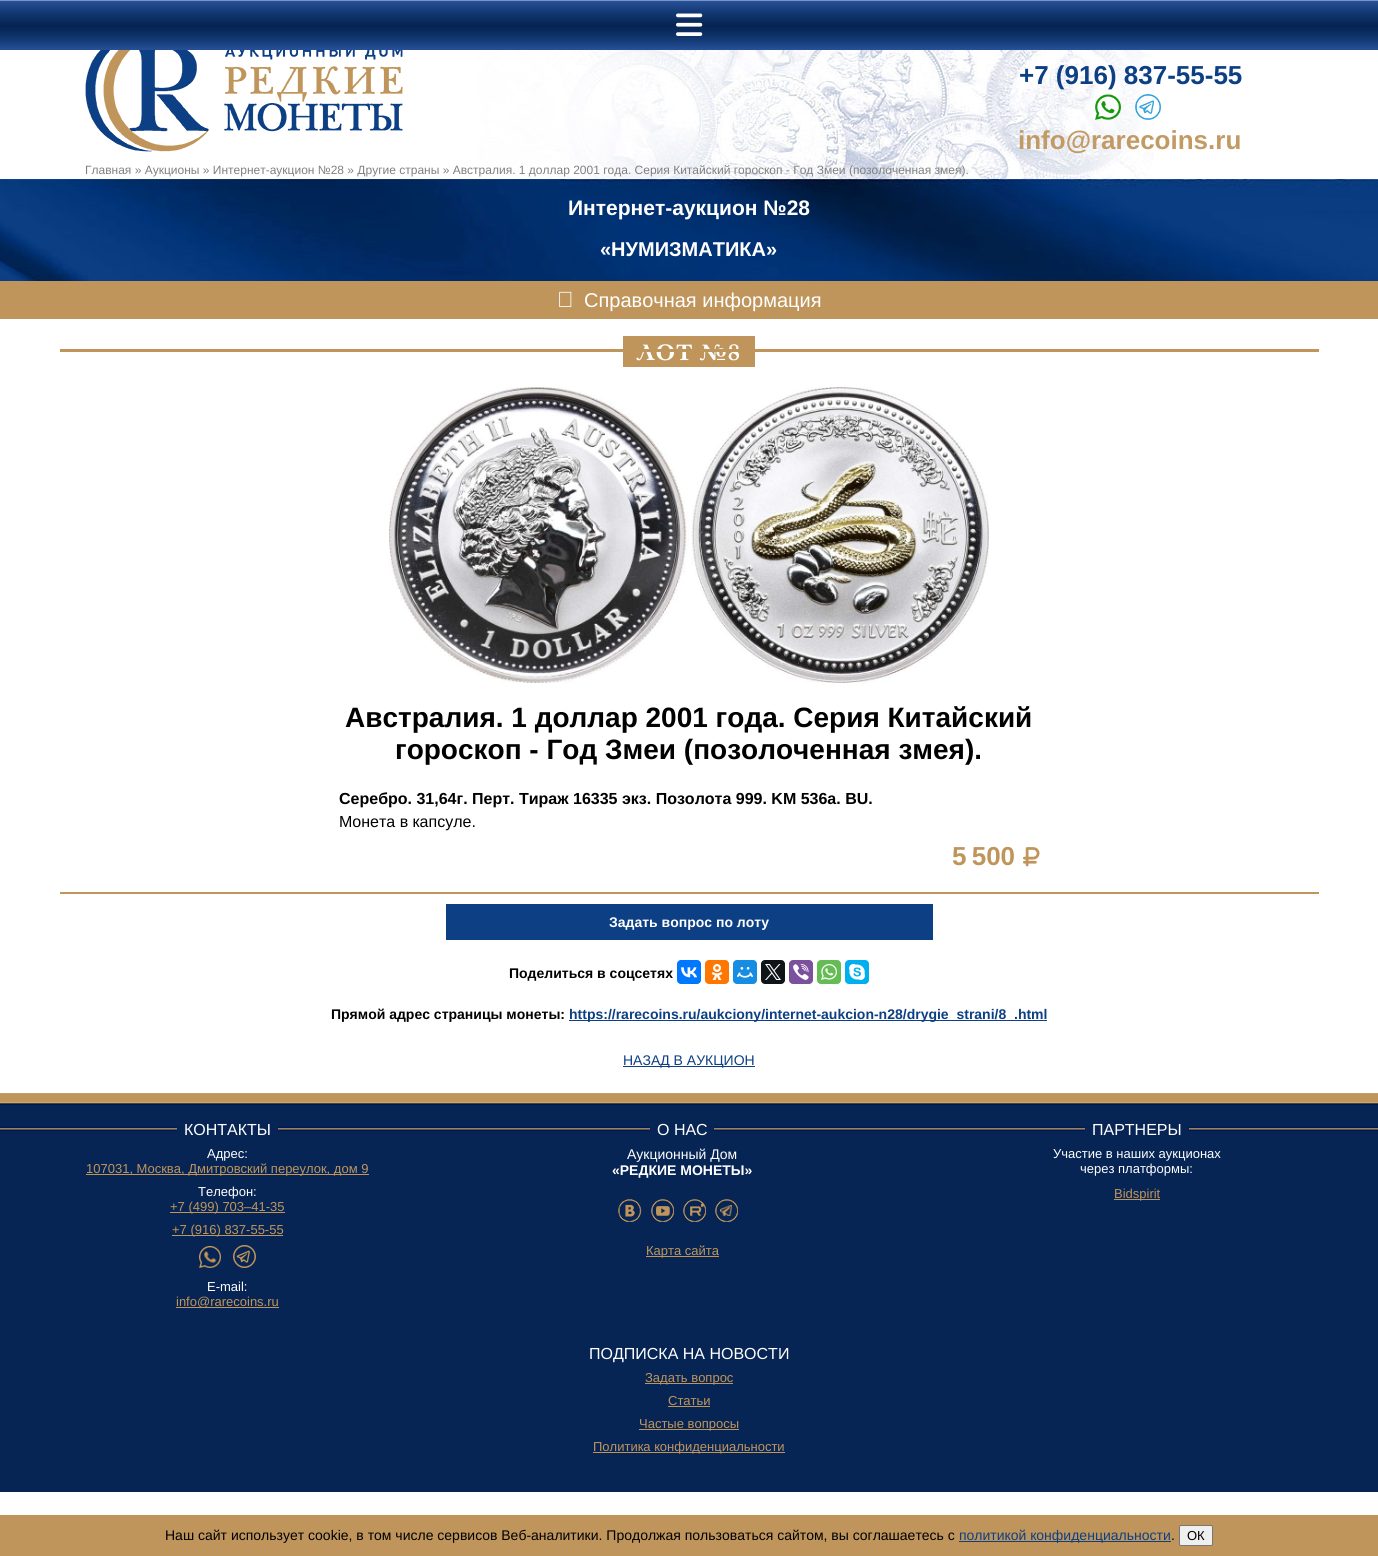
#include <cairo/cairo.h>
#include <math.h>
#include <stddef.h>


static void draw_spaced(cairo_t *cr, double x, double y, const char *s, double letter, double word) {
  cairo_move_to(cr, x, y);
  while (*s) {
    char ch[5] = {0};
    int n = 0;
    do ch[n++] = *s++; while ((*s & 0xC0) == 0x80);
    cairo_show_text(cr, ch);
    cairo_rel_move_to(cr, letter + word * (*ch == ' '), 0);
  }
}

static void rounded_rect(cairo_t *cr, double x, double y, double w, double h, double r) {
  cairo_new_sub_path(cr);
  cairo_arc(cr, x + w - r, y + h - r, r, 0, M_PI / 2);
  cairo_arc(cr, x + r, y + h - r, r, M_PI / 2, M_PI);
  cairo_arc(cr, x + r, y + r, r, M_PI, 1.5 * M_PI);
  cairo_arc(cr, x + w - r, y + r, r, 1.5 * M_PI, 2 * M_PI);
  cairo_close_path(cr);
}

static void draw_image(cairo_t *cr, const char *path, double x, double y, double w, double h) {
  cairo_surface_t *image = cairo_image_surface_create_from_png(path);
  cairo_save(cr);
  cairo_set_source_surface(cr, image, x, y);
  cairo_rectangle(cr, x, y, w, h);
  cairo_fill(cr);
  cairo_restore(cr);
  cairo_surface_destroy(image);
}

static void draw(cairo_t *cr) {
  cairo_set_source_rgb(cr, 1, 1, 1);
  cairo_paint(cr);
  draw_image(cr, "images/1.png", 0, 0, 1378, 50);
  draw_image(cr, "images/2.png", 676, 13, 27, 23);
  draw_image(cr, "images/3.png", 477, 50, 677, 129);
  draw_image(cr, "images/4.png", 85, 50, 318, 102);
  draw_image(cr, "images/5.png", 1095, 94, 26, 26);
  draw_image(cr, "images/6.png", 1135, 94, 26, 26);
  draw_image(cr, "images/7.png", 0, 179, 1378, 102);
  cairo_set_source_rgb(cr, 191 / 255.0, 149 / 255.0, 91 / 255.0);
  cairo_rectangle(cr, 0, 281, 1378, 38);
  cairo_fill(cr);
  draw_image(cr, "images/8.png", 559, 291, 13, 16);
  cairo_rectangle(cr, 623, 336, 132, 31);
  cairo_fill(cr);
  draw_image(cr, "images/9.png", 389, 387, 600, 296);
  draw_image(cr, "images/10.png", 1023, 847, 17, 20);
  cairo_rectangle(cr, 60, 892, 1259, 2);
  cairo_fill(cr);
  cairo_set_source_rgb(cr, 12 / 255.0, 63 / 255.0, 131 / 255.0);
  cairo_rectangle(cr, 446, 904, 487, 36);
  cairo_fill(cr);
  cairo_set_source_rgb(cr, 0, 119 / 255.0, 1);
  rounded_rect(cr, 677, 960, 24, 24, 4);
  cairo_fill(cr);
  draw_image(cr, "images/11.png", 681, 967, 16, 11);
  cairo_set_source_rgb(cr, 1, 119 / 255.0, 0);
  rounded_rect(cr, 705, 960, 24, 24, 4);
  cairo_fill(cr);
  draw_image(cr, "images/12.png", 711, 964, 12, 16);
  cairo_set_source_rgb(cr, 22 / 255.0, 141 / 255.0, 226 / 255.0);
  rounded_rect(cr, 733, 960, 24, 24, 4);
  cairo_fill(cr);
  draw_image(cr, "images/13.png", 737, 967, 16, 11);
  cairo_set_source_rgb(cr, 15 / 255.0, 20 / 255.0, 25 / 255.0);
  rounded_rect(cr, 761, 960, 24, 24, 4);
  cairo_fill(cr);
  draw_image(cr, "images/14.png", 765, 964, 16, 16);
  cairo_set_source_rgb(cr, 123 / 255.0, 81 / 255.0, 157 / 255.0);
  rounded_rect(cr, 789, 960, 24, 24, 4);
  cairo_fill(cr);
  draw_image(cr, "images/15.png", 793, 964, 16, 16);
  cairo_set_source_rgb(cr, 101 / 255.0, 188 / 255.0, 84 / 255.0);
  rounded_rect(cr, 817, 960, 24, 24, 4);
  cairo_fill(cr);
  draw_image(cr, "images/16.png", 821, 964, 16, 16);
  cairo_set_source_rgb(cr, 0, 175 / 255.0, 240 / 255.0);
  rounded_rect(cr, 845, 960, 24, 24, 4);
  cairo_fill(cr);
  draw_image(cr, "images/17.png", 849, 964, 16, 16);
  cairo_set_source_rgb(cr, 12 / 255.0, 63 / 255.0, 131 / 255.0);
  cairo_rectangle(cr, 569, 1020, 478, 1);
  cairo_fill(cr);
  cairo_rectangle(cr, 623, 1066, 132, 1);
  cairo_fill(cr);
  cairo_set_source_rgb(cr, 7 / 255.0, 37 / 255.0, 84 / 255.0);
  cairo_rectangle(cr, 0, 1131, 1378, 361);
  cairo_fill(cr);
  draw_image(cr, "images/18.png", 0, 1093, 1378, 38);
  cairo_rectangle(cr, 177, 1127, 101, 4);
  cairo_fill(cr);
  cairo_set_source_rgb(cr, 191 / 255.0, 149 / 255.0, 91 / 255.0);
  cairo_rectangle(cr, 86, 1174, 283, 1);
  cairo_fill(cr);
  cairo_rectangle(cr, 170, 1212, 115, 1);
  cairo_fill(cr);
  cairo_rectangle(cr, 172, 1235, 111, 1);
  cairo_fill(cr);
  draw_image(cr, "images/19.png", 199, 1246, 22, 22);
  draw_image(cr, "images/20.png", 233, 1245, 23, 23);
  cairo_rectangle(cr, 176, 1307, 103, 1);
  cairo_fill(cr);
  cairo_set_source_rgb(cr, 7 / 255.0, 37 / 255.0, 84 / 255.0);
  cairo_rectangle(cr, 650, 1127, 64, 4);
  cairo_fill(cr);
  draw_image(cr, "images/21.png", 618, 1199, 24, 23);
  draw_image(cr, "images/22.png", 651, 1199, 23, 23);
  draw_image(cr, "images/23.png", 683, 1199, 23, 23);
  draw_image(cr, "images/24.png", 715, 1199, 23, 23);
  cairo_set_source_rgb(cr, 191 / 255.0, 149 / 255.0, 91 / 255.0);
  cairo_rectangle(cr, 646, 1256, 73, 1);
  cairo_fill(cr);
  cairo_set_source_rgb(cr, 7 / 255.0, 37 / 255.0, 84 / 255.0);
  cairo_rectangle(cr, 1085, 1127, 104, 4);
  cairo_fill(cr);
  cairo_set_source_rgb(cr, 191 / 255.0, 149 / 255.0, 91 / 255.0);
  cairo_rectangle(cr, 1114, 1199, 46, 1);
  cairo_fill(cr);
  cairo_rectangle(cr, 645, 1383, 88, 1);
  cairo_fill(cr);
  cairo_rectangle(cr, 668, 1406, 42, 1);
  cairo_fill(cr);
  cairo_rectangle(cr, 639, 1429, 100, 1);
  cairo_fill(cr);
  cairo_rectangle(cr, 593, 1452, 192, 1);
  cairo_fill(cr);
  cairo_rectangle(cr, 0, 1515, 1378, 41);
  cairo_fill(cr);
  cairo_set_source_rgb(cr, 12 / 255.0, 63 / 255.0, 131 / 255.0);
  cairo_rectangle(cr, 959, 1541, 212, 1);
  cairo_fill(cr);
  cairo_set_source_rgb(cr, 239 / 255.0, 239 / 255.0, 239 / 255.0);
  rounded_rect(cr, 1179.5, 1525.5, 33, 20, 1.5);
  cairo_fill_preserve(cr);
  cairo_set_source_rgb(cr, 118 / 255.0, 118 / 255.0, 118 / 255.0);
  cairo_set_line_width(cr, 1);
  cairo_stroke(cr);
  cairo_select_font_face(cr, "Liberation Sans", CAIRO_FONT_SLANT_NORMAL, CAIRO_FONT_WEIGHT_BOLD);
  cairo_set_font_size(cr, 26);
  cairo_set_source_rgb(cr, 12 / 255.0, 63 / 255.0, 131 / 255.0);
  cairo_move_to(cr, 1019, 84);
  cairo_show_text(cr, "+7 (916) 837-55-55");
  cairo_set_source_rgb(cr, 194 / 255.0, 154 / 255.0, 99 / 255.0);
  cairo_move_to(cr, 1018, 149);
  cairo_show_text(cr, "info@rarecoins.ru");
  cairo_select_font_face(cr, "Liberation Sans", CAIRO_FONT_SLANT_NORMAL, CAIRO_FONT_WEIGHT_NORMAL);
  cairo_set_font_size(cr, 12);
  cairo_set_source_rgb(cr, 128 / 255.0, 128 / 255.0, 128 / 255.0);
  cairo_move_to(cr, 85, 174);
  cairo_show_text(cr, "Главная » Аукционы » Интернет-аукцион №28 » Другие страны » Австралия. 1 доллар 2001 года. Серия Китайский гороскоп - Год Змеи (позолоченная змея).");
  cairo_select_font_face(cr, "Liberation Sans", CAIRO_FONT_SLANT_NORMAL, CAIRO_FONT_WEIGHT_BOLD);
  cairo_set_font_size(cr, 21);
  cairo_set_source_rgb(cr, 1, 1, 1);
  cairo_move_to(cr, 568, 215);
  cairo_show_text(cr, "Интернет-аукцион №28");
  cairo_set_font_size(cr, 20);
  cairo_move_to(cr, 600, 256);
  cairo_show_text(cr, "«НУМИЗМАТИКА»");
  cairo_select_font_face(cr, "Liberation Sans", CAIRO_FONT_SLANT_NORMAL, CAIRO_FONT_WEIGHT_NORMAL);
  cairo_move_to(cr, 584, 307);
  cairo_show_text(cr, "Справочная информация");
  cairo_select_font_face(cr, "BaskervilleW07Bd", CAIRO_FONT_SLANT_NORMAL, CAIRO_FONT_WEIGHT_BOLD);
  cairo_set_font_size(cr, 23);
  draw_spaced(cr, 637, 360, "ЛОТ №8", 1, 0);
  cairo_set_source_rgb(cr, 191 / 255.0, 149 / 255.0, 91 / 255.0);
  cairo_rectangle(cr, 60, 349, 1259, 3);
  cairo_fill(cr);
  cairo_select_font_face(cr, "Liberation Sans", CAIRO_FONT_SLANT_NORMAL, CAIRO_FONT_WEIGHT_BOLD);
  cairo_set_font_size(cr, 28);
  cairo_set_source_rgb(cr, 0, 0, 0);
  cairo_move_to(cr, 345, 727);
  cairo_show_text(cr, "Австралия. 1 доллар 2001 года. Серия Китайский");
  cairo_move_to(cr, 395, 759);
  cairo_show_text(cr, "гороскоп - Год Змеи (позолоченная змея).");
  cairo_set_font_size(cr, 16);
  cairo_move_to(cr, 339, 804);
  cairo_show_text(cr, "Серебро. 31,64г. Перт. Тираж 16335 экз. Позолота 999. KM 536a. BU.");
  cairo_select_font_face(cr, "Liberation Sans", CAIRO_FONT_SLANT_NORMAL, CAIRO_FONT_WEIGHT_NORMAL);
  cairo_move_to(cr, 339, 827);
  cairo_show_text(cr, "Монета в капсуле.");
  cairo_select_font_face(cr, "Liberation Sans", CAIRO_FONT_SLANT_NORMAL, CAIRO_FONT_WEIGHT_BOLD);
  cairo_set_font_size(cr, 26);
  cairo_set_source_rgb(cr, 191 / 255.0, 149 / 255.0, 91 / 255.0);
  cairo_move_to(cr, 952, 865);
  cairo_show_text(cr, "5 500");
  cairo_set_font_size(cr, 14);
  cairo_set_source_rgb(cr, 1, 1, 1);
  cairo_move_to(cr, 609, 927);
  cairo_show_text(cr, "Задать вопрос по лоту");
  cairo_set_source_rgb(cr, 0, 0, 0);
  cairo_move_to(cr, 509, 978);
  cairo_show_text(cr, "Поделиться в соцсетях");
  cairo_move_to(cr, 331, 1019);
  cairo_show_text(cr, "Прямой адрес страницы монеты:");
  cairo_set_source_rgb(cr, 12 / 255.0, 63 / 255.0, 131 / 255.0);
  cairo_move_to(cr, 569, 1019);
  cairo_show_text(cr, "https://rarecoins.ru/aukciony/internet-aukcion-n28/drygie_strani/8_.html");
  cairo_select_font_face(cr, "Liberation Sans", CAIRO_FONT_SLANT_NORMAL, CAIRO_FONT_WEIGHT_NORMAL);
  cairo_move_to(cr, 623, 1065);
  cairo_show_text(cr, "НАЗАД В АУКЦИОН");
  cairo_set_font_size(cr, 16);
  cairo_set_source_rgb(cr, 1, 1, 1);
  cairo_move_to(cr, 184, 1135);
  cairo_show_text(cr, "КОНТАКТЫ");
  cairo_set_font_size(cr, 13);
  cairo_move_to(cr, 207, 1158);
  cairo_show_text(cr, "Адрес:");
  cairo_set_source_rgb(cr, 191 / 255.0, 149 / 255.0, 91 / 255.0);
  cairo_move_to(cr, 86, 1173);
  cairo_show_text(cr, "107031, Москва, Дмитровский переулок, дом 9");
  cairo_set_source_rgb(cr, 1, 1, 1);
  cairo_move_to(cr, 198, 1196);
  cairo_show_text(cr, "Телефон:");
  cairo_set_source_rgb(cr, 191 / 255.0, 149 / 255.0, 91 / 255.0);
  cairo_move_to(cr, 170, 1211);
  cairo_show_text(cr, "+7 (499) 703–41-35");
  cairo_move_to(cr, 172, 1234);
  cairo_show_text(cr, "+7 (916) 837-55-55");
  cairo_set_source_rgb(cr, 1, 1, 1);
  cairo_move_to(cr, 207, 1291);
  cairo_show_text(cr, "E-mail:");
  cairo_set_source_rgb(cr, 191 / 255.0, 149 / 255.0, 91 / 255.0);
  cairo_move_to(cr, 176, 1306);
  cairo_show_text(cr, "info@rarecoins.ru");
  cairo_set_font_size(cr, 16);
  cairo_set_source_rgb(cr, 1, 1, 1);
  cairo_move_to(cr, 657, 1135);
  cairo_show_text(cr, "О НАС");
  cairo_set_font_size(cr, 14);
  cairo_move_to(cr, 627, 1159);
  cairo_show_text(cr, "Аукционный Дом");
  cairo_select_font_face(cr, "Liberation Sans", CAIRO_FONT_SLANT_NORMAL, CAIRO_FONT_WEIGHT_BOLD);
  cairo_move_to(cr, 612, 1175);
  cairo_show_text(cr, "«РЕДКИЕ МОНЕТЫ»");
  cairo_select_font_face(cr, "Liberation Sans", CAIRO_FONT_SLANT_NORMAL, CAIRO_FONT_WEIGHT_NORMAL);
  cairo_set_font_size(cr, 13);
  cairo_set_source_rgb(cr, 191 / 255.0, 149 / 255.0, 91 / 255.0);
  cairo_move_to(cr, 646, 1255);
  cairo_show_text(cr, "Карта сайта");
  cairo_set_font_size(cr, 16);
  cairo_set_source_rgb(cr, 1, 1, 1);
  cairo_move_to(cr, 1092, 1135);
  cairo_show_text(cr, "ПАРТНЕРЫ");
  cairo_set_font_size(cr, 13);
  cairo_move_to(cr, 1053, 1158);
  cairo_show_text(cr, "Участие в наших аукционах");
  cairo_move_to(cr, 1080, 1173);
  cairo_show_text(cr, "через платформы:");
  cairo_set_source_rgb(cr, 191 / 255.0, 149 / 255.0, 91 / 255.0);
  cairo_move_to(cr, 1114, 1198);
  cairo_show_text(cr, "Bidspirit");
  cairo_set_font_size(cr, 16);
  cairo_set_source_rgb(cr, 1, 1, 1);
  cairo_move_to(cr, 589, 1359);
  cairo_show_text(cr, "ПОДПИСКА НА НОВОСТИ");
  cairo_set_font_size(cr, 13);
  cairo_set_source_rgb(cr, 191 / 255.0, 149 / 255.0, 91 / 255.0);
  cairo_move_to(cr, 645, 1382);
  cairo_show_text(cr, "Задать вопрос");
  cairo_move_to(cr, 668, 1405);
  cairo_show_text(cr, "Статьи");
  cairo_move_to(cr, 639, 1428);
  cairo_show_text(cr, "Частые вопросы");
  cairo_move_to(cr, 593, 1451);
  cairo_show_text(cr, "Политика конфиденциальности");
  cairo_set_font_size(cr, 14);
  cairo_set_source_rgb(cr, 0, 0, 0);
  cairo_move_to(cr, 165, 1540);
  cairo_show_text(cr, "Наш сайт использует сооkiе, в том числе сервисов Веб-аналитики. Продолжая пользоваться сайтом, вы соглашаетесь с");
  cairo_set_source_rgb(cr, 12 / 255.0, 63 / 255.0, 131 / 255.0);
  cairo_move_to(cr, 959, 1540);
  cairo_show_text(cr, "политикой конфиденциальности");
  cairo_set_source_rgb(cr, 0, 0, 0);
  cairo_move_to(cr, 1171, 1540);
  cairo_show_text(cr, ".");
  cairo_set_font_size(cr, 13);
  cairo_move_to(cr, 1187, 1540);
  cairo_show_text(cr, "ОК");
}

int main(void) {
  cairo_surface_t *surface = cairo_image_surface_create(CAIRO_FORMAT_RGB24, 1378, 1556);
  cairo_t *cr = cairo_create(surface);
  cairo_font_options_t *options = cairo_font_options_create();
  cairo_font_options_set_hint_metrics(options, CAIRO_HINT_METRICS_OFF);
  cairo_font_options_set_hint_style(options, CAIRO_HINT_STYLE_NONE);
  cairo_set_font_options(cr, options);
  cairo_set_miter_limit(cr, 4);
  draw(cr);
  cairo_surface_write_to_png(surface, "out.png");
  cairo_font_options_destroy(options);
  cairo_destroy(cr);
  cairo_surface_destroy(surface);
  return 0;
}
